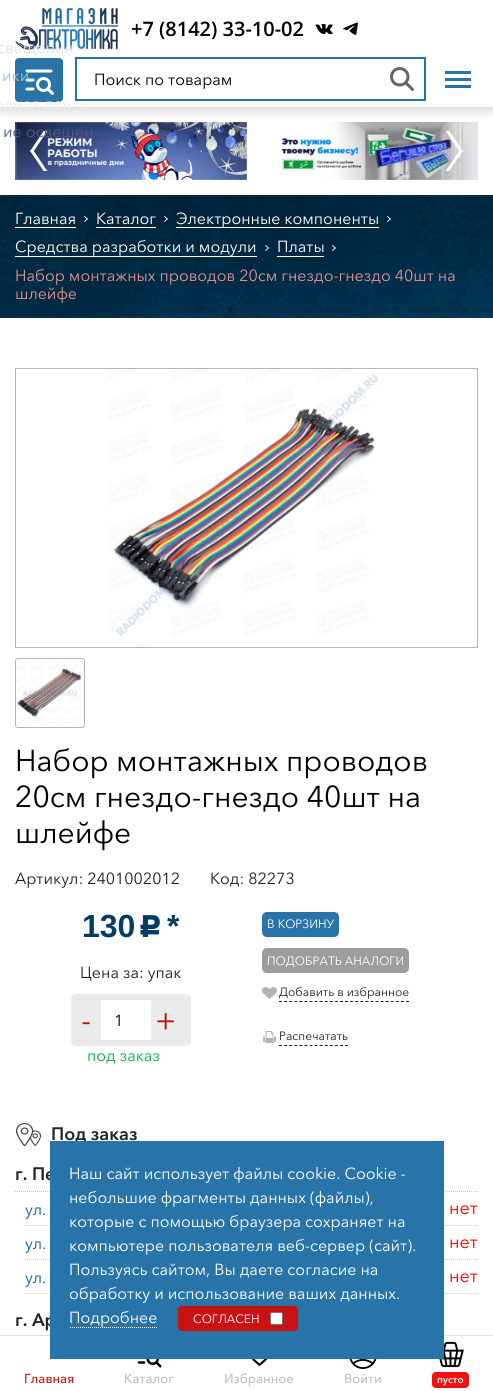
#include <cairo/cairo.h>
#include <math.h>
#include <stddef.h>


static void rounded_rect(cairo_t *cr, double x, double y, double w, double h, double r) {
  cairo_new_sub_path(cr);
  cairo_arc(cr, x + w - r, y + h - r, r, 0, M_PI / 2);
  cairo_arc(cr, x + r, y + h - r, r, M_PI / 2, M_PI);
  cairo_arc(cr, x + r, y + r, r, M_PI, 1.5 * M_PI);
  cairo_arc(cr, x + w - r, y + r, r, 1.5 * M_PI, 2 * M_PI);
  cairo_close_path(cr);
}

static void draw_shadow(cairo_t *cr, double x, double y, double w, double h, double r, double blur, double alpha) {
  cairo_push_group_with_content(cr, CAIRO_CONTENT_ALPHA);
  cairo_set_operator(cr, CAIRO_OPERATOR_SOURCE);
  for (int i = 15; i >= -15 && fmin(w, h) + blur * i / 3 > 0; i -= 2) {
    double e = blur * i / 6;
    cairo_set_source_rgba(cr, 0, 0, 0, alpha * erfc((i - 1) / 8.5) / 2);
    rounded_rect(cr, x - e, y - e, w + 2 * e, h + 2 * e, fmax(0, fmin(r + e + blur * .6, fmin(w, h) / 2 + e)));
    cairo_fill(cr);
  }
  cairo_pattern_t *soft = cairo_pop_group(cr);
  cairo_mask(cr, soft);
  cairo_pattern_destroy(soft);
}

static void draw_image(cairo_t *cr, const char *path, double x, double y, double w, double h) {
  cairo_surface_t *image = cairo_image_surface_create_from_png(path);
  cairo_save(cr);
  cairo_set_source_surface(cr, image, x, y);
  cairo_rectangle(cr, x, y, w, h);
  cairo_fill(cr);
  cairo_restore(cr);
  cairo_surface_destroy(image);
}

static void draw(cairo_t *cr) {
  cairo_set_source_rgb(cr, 1, 1, 1);
  cairo_paint(cr);
  draw_image(cr, "images/6.png", 15, 122, 1, 58);
  draw_image(cr, "images/7.png", 15, 122, 232, 58);
  draw_image(cr, "images/8.png", 281, 122, 197, 58);
  draw_image(cr, "images/9.png", 30, 131, 18, 40);
  draw_image(cr, "images/10.png", 446, 131, 17, 40);
  cairo_save(cr);
  cairo_rectangle(cr, 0, 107, 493, 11);
  cairo_clip(cr);
  cairo_set_source_rgb(cr, 0, 0, 0);
  draw_shadow(cr, 0, 0, 493, 107, 0, 8, 0.25);
  cairo_restore(cr);
  draw_image(cr, "images/1.png", 15, 7, 104, 43);
  draw_image(cr, "images/2.png", 315, 24, 18, 10);
  draw_image(cr, "images/3.png", 343, 22, 15, 13);
  cairo_set_source_rgb(cr, 40 / 255.0, 116 / 255.0, 167 / 255.0);
  rounded_rect(cr, 15, 58, 48, 44, 4);
  cairo_fill(cr);
  draw_image(cr, "images/4.png", 25, 69, 29, 26);
  cairo_rectangle(cr, 76, 58, 349, 42);
  cairo_set_source_rgb(cr, 40 / 255.0, 116 / 255.0, 168 / 255.0);
  cairo_stroke(cr);
  draw_image(cr, "images/5.png", 390, 67, 24, 24);
  cairo_rectangle(cr, 445, 71, 26, 3);
  cairo_fill(cr);
  cairo_rectangle(cr, 445, 78, 26, 3);
  cairo_fill(cr);
  cairo_rectangle(cr, 445, 85, 26, 3);
  cairo_fill(cr);
  draw_image(cr, "images/11.png", 0, 195, 493, 123);
  cairo_set_source_rgb(cr, 1, 1, 1);
  cairo_rectangle(cr, 15, 227, 61, 1);
  cairo_fill(cr);
  draw_image(cr, "images/12.png", 84, 216, 4, 6);
  cairo_rectangle(cr, 96, 227, 60, 1);
  cairo_fill(cr);
  draw_image(cr, "images/13.png", 164, 216, 4, 6);
  cairo_rectangle(cr, 176, 227, 203, 1);
  cairo_fill(cr);
  draw_image(cr, "images/14.png", 387, 216, 4, 6);
  cairo_rectangle(cr, 15, 256, 242, 1);
  cairo_fill(cr);
  draw_image(cr, "images/15.png", 265, 245, 4, 6);
  cairo_rectangle(cr, 277, 256, 47, 1);
  cairo_fill(cr);
  draw_image(cr, "images/16.png", 332, 245, 4, 6);
  draw_image(cr, "images/17.png", 108, 369, 270, 278);
  cairo_rectangle(cr, 15.5, 368.5, 462, 279);
  cairo_set_source_rgb(cr, 181 / 255.0, 181 / 255.0, 181 / 255.0);
  cairo_set_line_width(cr, 1);
  cairo_stroke(cr);
  draw_image(cr, "images/18.png", 17, 659, 65, 64);
  rounded_rect(cr, 15.5, 658.5, 69, 69, 2.5);
  cairo_stroke(cr);
  cairo_set_source_rgb(cr, 40 / 255.0, 116 / 255.0, 168 / 255.0);
  rounded_rect(cr, 262, 912, 77, 25, 5);
  cairo_fill(cr);
  cairo_set_source_rgb(cr, 157 / 255.0, 157 / 255.0, 157 / 255.0);
  rounded_rect(cr, 262, 948, 147, 25, 5);
  cairo_fill(cr);
  cairo_set_source_rgb(cr, 235 / 255.0, 235 / 255.0, 235 / 255.0);
  rounded_rect(cr, 71, 994, 120, 52, 5);
  cairo_fill(cr);
  cairo_set_source_rgb(cr, 1, 1, 1);
  cairo_rectangle(cr, 101, 1000, 50, 40);
  cairo_fill(cr);
  draw_image(cr, "images/19.png", 262, 987, 15, 12);
  cairo_new_path(cr);
  cairo_move_to(cr, 279, 1001.5);
  cairo_line_to(cr, 409, 1001.5);
  cairo_set_source_rgb(cr, 35 / 255.0, 31 / 255.0, 32 / 255.0);
  cairo_set_dash(cr, (double[]){3, 2.08}, 2, 0);
  cairo_stroke(cr);
  draw_image(cr, "images/20.png", 263, 1031, 13, 12);
  cairo_new_path(cr);
  cairo_move_to(cr, 279, 1045.5);
  cairo_line_to(cr, 348, 1045.5);
  cairo_stroke(cr);
  draw_image(cr, "images/21.png", 16, 1123, 25, 23);
  cairo_new_path(cr);
  cairo_move_to(cr, 15, 1191.5);
  cairo_line_to(cr, 478, 1191.5);
  cairo_set_source_rgb(cr, 204 / 255.0, 204 / 255.0, 204 / 255.0);
  cairo_set_dash(cr, (double[]){1, 1}, 2, 0);
  cairo_stroke(cr);
  cairo_new_path(cr);
  cairo_move_to(cr, 25, 1225.5);
  cairo_line_to(cr, 478, 1225.5);
  cairo_stroke(cr);
  cairo_new_path(cr);
  cairo_move_to(cr, 25, 1259.5);
  cairo_line_to(cr, 478, 1259.5);
  cairo_stroke(cr);
  cairo_new_path(cr);
  cairo_move_to(cr, 25, 1293.5);
  cairo_line_to(cr, 478, 1293.5);
  cairo_stroke(cr);
  cairo_set_source_rgb(cr, 224 / 255.0, 223 / 255.0, 227 / 255.0);
  cairo_rectangle(cr, 0, 1335, 493, 1);
  cairo_fill(cr);
  draw_image(cr, "images/22.png", 137, 1359, 25, 9);
  draw_image(cr, "images/23.png", 251, 1359, 17, 7);
  draw_image(cr, "images/24.png", 349, 1359, 28, 10);
  draw_image(cr, "images/25.png", 439, 1341, 25, 27);
  cairo_set_source_rgb(cr, 242 / 255.0, 16 / 255.0, 16 / 255.0);
  rounded_rect(cr, 432, 1372, 37, 16, 4);
  cairo_fill(cr);
  cairo_select_font_face(cr, "Open Sans SemiBold", CAIRO_FONT_SLANT_NORMAL, CAIRO_FONT_WEIGHT_NORMAL);
  cairo_set_font_size(cr, 20);
  cairo_set_source_rgb(cr, 0, 0, 0);
  cairo_move_to(cr, 131, 36);
  cairo_show_text(cr, "+7 (8142) 33-10-02");
  cairo_select_font_face(cr, "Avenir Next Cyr", CAIRO_FONT_SLANT_NORMAL, CAIRO_FONT_WEIGHT_NORMAL);
  cairo_set_font_size(cr, 16);
  cairo_set_source_rgb(cr, 219 / 255.0, 227 / 255.0, 234 / 255.0);
  cairo_move_to(cr, -3, 53);
  cairo_show_text(cr, "свещения");
  cairo_set_source_rgb(cr, 158 / 255.0, 192 / 255.0, 215 / 255.0);
  cairo_move_to(cr, 2, 81);
  cairo_show_text(cr, "ики");
  cairo_set_source_rgb(cr, 235 / 255.0, 239 / 255.0, 242 / 255.0);
  cairo_move_to(cr, -6, 109);
  cairo_show_text(cr, "одная лента");
  cairo_set_source_rgb(cr, 76 / 255.0, 91 / 255.0, 134 / 255.0);
  cairo_move_to(cr, 3, 137);
  cairo_show_text(cr, "ие освещен");
  cairo_set_source_rgb(cr, 0, 0, 0);
  cairo_move_to(cr, 94, 85);
  cairo_show_text(cr, "Поиск по товарам");
  cairo_set_source_rgb(cr, 1, 1, 1);
  cairo_move_to(cr, 15, 224);
  cairo_show_text(cr, "Главная");
  cairo_move_to(cr, 96, 224);
  cairo_show_text(cr, "Каталог");
  cairo_move_to(cr, 176, 224);
  cairo_show_text(cr, "Электронные компоненты");
  cairo_move_to(cr, 15, 252);
  cairo_show_text(cr, "Средства разработки и модули");
  cairo_move_to(cr, 277, 252);
  cairo_show_text(cr, "Платы");
  cairo_set_source_rgb(cr, 224 / 255.0, 145 / 255.0, 145 / 255.0);
  cairo_move_to(cr, 15, 281);
  cairo_show_text(cr, "Набор монтажных проводов 20см гнездо-гнездо 40шт на");
  cairo_move_to(cr, 15, 299);
  cairo_show_text(cr, "шлейфе");
  cairo_set_font_size(cr, 30);
  cairo_set_source_rgb(cr, 0, 0, 0);
  cairo_move_to(cr, 15, 771);
  cairo_show_text(cr, "Набор монтажных проводов");
  cairo_move_to(cr, 15, 807);
  cairo_show_text(cr, "20см гнездо-гнездо 40шт на");
  cairo_move_to(cr, 15, 843);
  cairo_show_text(cr, "шлейфе");
  cairo_set_font_size(cr, 16);
  cairo_set_source_rgb(cr, 35 / 255.0, 31 / 255.0, 32 / 255.0);
  cairo_move_to(cr, 15, 884);
  cairo_show_text(cr, "Артикул: 2401002012");
  cairo_move_to(cr, 210, 884);
  cairo_show_text(cr, "Код: 82273");
  cairo_select_font_face(cr, "Liberation Sans", CAIRO_FONT_SLANT_NORMAL, CAIRO_FONT_WEIGHT_BOLD);
  cairo_set_font_size(cr, 32);
  cairo_set_source_rgb(cr, 3 / 255.0, 61 / 255.0, 99 / 255.0);
  cairo_move_to(cr, 82, 937);
  cairo_show_text(cr, "130");
  cairo_select_font_face(cr, "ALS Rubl", CAIRO_FONT_SLANT_NORMAL, CAIRO_FONT_WEIGHT_BOLD);
  cairo_set_font_size(cr, 30);
  cairo_move_to(cr, 136, 937);
  cairo_show_text(cr, "c");
  cairo_select_font_face(cr, "Liberation Sans", CAIRO_FONT_SLANT_NORMAL, CAIRO_FONT_WEIGHT_BOLD);
  cairo_set_font_size(cr, 32);
  cairo_move_to(cr, 167, 937);
  cairo_show_text(cr, "*");
  cairo_select_font_face(cr, "Avenir Next Cyr", CAIRO_FONT_SLANT_NORMAL, CAIRO_FONT_WEIGHT_NORMAL);
  cairo_set_font_size(cr, 16);
  cairo_set_source_rgb(cr, 35 / 255.0, 31 / 255.0, 32 / 255.0);
  cairo_move_to(cr, 80, 978);
  cairo_show_text(cr, "Цена за: упак");
  cairo_set_font_size(cr, 12);
  cairo_set_source_rgb(cr, 1, 1, 1);
  cairo_move_to(cr, 267, 928);
  cairo_show_text(cr, "В КОРЗИНУ");
  cairo_move_to(cr, 267, 965);
  cairo_show_text(cr, "ПОДОБРАТЬ АНАЛОГИ");
  cairo_set_font_size(cr, 32);
  cairo_set_source_rgb(cr, 186 / 255.0, 20 / 255.0, 4 / 255.0);
  cairo_move_to(cr, 81, 1031);
  cairo_show_text(cr, "-");
  cairo_set_font_size(cr, 16);
  cairo_set_source_rgb(cr, 0, 0, 0);
  cairo_move_to(cr, 114, 1026);
  cairo_show_text(cr, "1");
  cairo_set_font_size(cr, 32);
  cairo_set_source_rgb(cr, 186 / 255.0, 20 / 255.0, 4 / 255.0);
  cairo_move_to(cr, 155, 1031);
  cairo_show_text(cr, "+");
  cairo_set_font_size(cr, 16);
  cairo_set_source_rgb(cr, 1 / 255.0, 176 / 255.0, 63 / 255.0);
  cairo_move_to(cr, 87, 1061);
  cairo_show_text(cr, "под заказ");
  cairo_set_font_size(cr, 12);
  cairo_set_source_rgb(cr, 35 / 255.0, 31 / 255.0, 32 / 255.0);
  cairo_move_to(cr, 279, 996);
  cairo_show_text(cr, "Добавить в избранное");
  cairo_move_to(cr, 279, 1040);
  cairo_show_text(cr, "Распечатать");
  cairo_select_font_face(cr, "Avenir Next Cyr", CAIRO_FONT_SLANT_NORMAL, CAIRO_FONT_WEIGHT_BOLD);
  cairo_set_font_size(cr, 18);
  cairo_set_source_rgb(cr, 33 / 255.0, 37 / 255.0, 41 / 255.0);
  cairo_move_to(cr, 51, 1140);
  cairo_show_text(cr, "Под заказ");
  cairo_move_to(cr, 15, 1180);
  cairo_show_text(cr, "г. Пе");
  cairo_select_font_face(cr, "Avenir Next Cyr", CAIRO_FONT_SLANT_NORMAL, CAIRO_FONT_WEIGHT_NORMAL);
  cairo_set_font_size(cr, 16);
  cairo_set_source_rgb(cr, 9 / 255.0, 92 / 255.0, 152 / 255.0);
  cairo_move_to(cr, 25, 1215);
  cairo_show_text(cr, "ул.");
  cairo_set_font_size(cr, 18);
  cairo_set_source_rgb(cr, 1, 0, 0);
  cairo_move_to(cr, 449, 1214);
  cairo_show_text(cr, "нет");
  cairo_set_font_size(cr, 16);
  cairo_set_source_rgb(cr, 9 / 255.0, 92 / 255.0, 152 / 255.0);
  cairo_move_to(cr, 25, 1249);
  cairo_show_text(cr, "ул.");
  cairo_set_font_size(cr, 18);
  cairo_set_source_rgb(cr, 1, 0, 0);
  cairo_move_to(cr, 449, 1248);
  cairo_show_text(cr, "нет");
  cairo_set_font_size(cr, 16);
  cairo_set_source_rgb(cr, 9 / 255.0, 92 / 255.0, 152 / 255.0);
  cairo_move_to(cr, 25, 1283);
  cairo_show_text(cr, "ул.");
  cairo_set_font_size(cr, 18);
  cairo_set_source_rgb(cr, 1, 0, 0);
  cairo_move_to(cr, 449, 1282);
  cairo_show_text(cr, "нет");
  cairo_select_font_face(cr, "Avenir Next Cyr", CAIRO_FONT_SLANT_NORMAL, CAIRO_FONT_WEIGHT_BOLD);
  cairo_set_source_rgb(cr, 33 / 255.0, 37 / 255.0, 41 / 255.0);
  cairo_move_to(cr, 15, 1326);
  cairo_show_text(cr, "г. Ар");
  cairo_set_source_rgb(cr, 40 / 255.0, 116 / 255.0, 168 / 255.0);
  cairo_rectangle(cr, 50, 1141, 394, 218);
  cairo_fill(cr);
  cairo_select_font_face(cr, "Avenir Next Cyr", CAIRO_FONT_SLANT_NORMAL, CAIRO_FONT_WEIGHT_NORMAL);
  cairo_set_font_size(cr, 16);
  cairo_set_source_rgb(cr, 1, 1, 1);
  cairo_move_to(cr, 69, 1179);
  cairo_show_text(cr, "Наш сайт использует файлы cookie. Cookie -");
  cairo_move_to(cr, 69, 1203);
  cairo_show_text(cr, "небольшие фрагменты данных (файлы),");
  cairo_move_to(cr, 69, 1227);
  cairo_show_text(cr, "которые с помощью браузера сохраняет на");
  cairo_move_to(cr, 69, 1251);
  cairo_show_text(cr, "компьютере пользователя веб-сервер (сайт).");
  cairo_move_to(cr, 69, 1275);
  cairo_show_text(cr, "Пользуясь сайтом, Вы даете согласие на");
  cairo_move_to(cr, 69, 1299);
  cairo_show_text(cr, "обработку и использование ваших данных.");
  cairo_move_to(cr, 69, 1323);
  cairo_show_text(cr, "Подробнее");
  cairo_new_path(cr);
  cairo_move_to(cr, 70, 1327.5);
  cairo_line_to(cr, 158, 1327.5);
  cairo_stroke(cr);
  cairo_set_source_rgb(cr, 201 / 255.0, 18 / 255.0, 18 / 255.0);
  rounded_rect(cr, 178, 1306, 120, 25, 4);
  cairo_fill(cr);
  cairo_set_font_size(cr, 12);
  cairo_set_source_rgb(cr, 1, 1, 1);
  cairo_move_to(cr, 193, 1323);
  cairo_show_text(cr, "СОГЛАСЕН");
  rounded_rect(cr, 270.5, 1312.5, 12, 12, 1.5);
  cairo_fill_preserve(cr);
  cairo_set_source_rgb(cr, 118 / 255.0, 118 / 255.0, 118 / 255.0);
  cairo_set_dash(cr, NULL, 0, 0);
  cairo_stroke(cr);
  cairo_select_font_face(cr, "Avenir Next Cyr Medium", CAIRO_FONT_SLANT_NORMAL, CAIRO_FONT_WEIGHT_NORMAL);
  cairo_set_font_size(cr, 13);
  cairo_set_source_rgb(cr, 208 / 255.0, 23 / 255.0, 22 / 255.0);
  cairo_move_to(cr, 24, 1383);
  cairo_show_text(cr, "Главная");
  cairo_set_source_rgb(cr, 191 / 255.0, 191 / 255.0, 193 / 255.0);
  cairo_move_to(cr, 124, 1383);
  cairo_show_text(cr, "Каталог");
  cairo_move_to(cr, 224, 1383);
  cairo_show_text(cr, "Избранное");
  cairo_move_to(cr, 344, 1383);
  cairo_show_text(cr, "Войти");
  cairo_select_font_face(cr, "Avenir Next Cyr", CAIRO_FONT_SLANT_NORMAL, CAIRO_FONT_WEIGHT_BOLD);
  cairo_set_font_size(cr, 10);
  cairo_set_source_rgb(cr, 1, 1, 1);
  cairo_move_to(cr, 437, 1383);
  cairo_show_text(cr, "пусто");
}

int main(void) {
  cairo_surface_t *surface = cairo_image_surface_create(CAIRO_FORMAT_RGB24, 493, 1391);
  cairo_t *cr = cairo_create(surface);
  cairo_font_options_t *options = cairo_font_options_create();
  cairo_font_options_set_hint_metrics(options, CAIRO_HINT_METRICS_OFF);
  cairo_font_options_set_hint_style(options, CAIRO_HINT_STYLE_NONE);
  cairo_set_font_options(cr, options);
  cairo_set_miter_limit(cr, 4);
  draw(cr);
  cairo_surface_write_to_png(surface, "out.png");
  cairo_font_options_destroy(options);
  cairo_destroy(cr);
  cairo_surface_destroy(surface);
  return 0;
}
